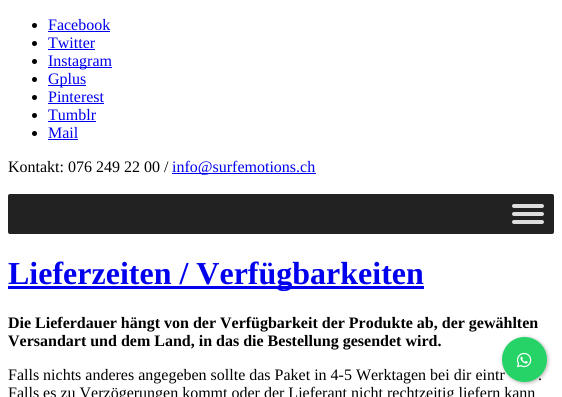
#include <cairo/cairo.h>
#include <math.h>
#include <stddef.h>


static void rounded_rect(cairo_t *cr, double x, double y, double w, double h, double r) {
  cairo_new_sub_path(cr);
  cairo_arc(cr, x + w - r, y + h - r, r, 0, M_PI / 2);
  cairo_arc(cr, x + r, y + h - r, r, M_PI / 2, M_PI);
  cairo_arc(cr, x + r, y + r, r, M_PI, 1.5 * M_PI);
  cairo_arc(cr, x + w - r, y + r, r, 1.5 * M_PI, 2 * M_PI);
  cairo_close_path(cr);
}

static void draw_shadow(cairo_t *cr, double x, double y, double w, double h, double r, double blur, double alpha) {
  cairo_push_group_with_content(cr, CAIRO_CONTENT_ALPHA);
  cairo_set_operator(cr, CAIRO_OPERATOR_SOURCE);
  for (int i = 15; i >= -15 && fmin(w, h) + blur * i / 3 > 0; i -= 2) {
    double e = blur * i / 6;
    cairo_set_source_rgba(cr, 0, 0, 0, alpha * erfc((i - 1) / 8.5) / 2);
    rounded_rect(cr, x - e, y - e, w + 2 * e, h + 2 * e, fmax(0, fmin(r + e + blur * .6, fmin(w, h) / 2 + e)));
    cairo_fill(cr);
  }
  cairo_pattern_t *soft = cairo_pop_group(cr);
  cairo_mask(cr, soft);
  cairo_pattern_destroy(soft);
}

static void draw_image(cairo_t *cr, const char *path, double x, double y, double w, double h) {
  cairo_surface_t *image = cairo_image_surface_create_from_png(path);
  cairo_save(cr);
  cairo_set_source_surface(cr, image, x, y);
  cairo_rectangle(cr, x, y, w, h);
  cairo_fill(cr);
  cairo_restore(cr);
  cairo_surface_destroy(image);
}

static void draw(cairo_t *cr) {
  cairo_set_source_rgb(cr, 1, 1, 1);
  cairo_paint(cr);
  cairo_set_source_rgb(cr, 0, 0, 0);
  cairo_arc(cr, 34.5, 25.5, 2.5, 0, 2 * M_PI);
  cairo_fill(cr);
  cairo_set_source_rgb(cr, 0, 0, 238 / 255.0);
  cairo_rectangle(cr, 48, 31, 62, 1);
  cairo_fill(cr);
  cairo_set_source_rgb(cr, 0, 0, 0);
  cairo_arc(cr, 34.5, 43.5, 2.5, 0, 2 * M_PI);
  cairo_fill(cr);
  cairo_set_source_rgb(cr, 0, 0, 238 / 255.0);
  cairo_rectangle(cr, 48, 49, 47, 1);
  cairo_fill(cr);
  cairo_set_source_rgb(cr, 0, 0, 0);
  cairo_arc(cr, 34.5, 61.5, 2.5, 0, 2 * M_PI);
  cairo_fill(cr);
  cairo_set_source_rgb(cr, 0, 0, 238 / 255.0);
  cairo_rectangle(cr, 48, 67, 64, 1);
  cairo_fill(cr);
  cairo_set_source_rgb(cr, 0, 0, 0);
  cairo_arc(cr, 34.5, 79.5, 2.5, 0, 2 * M_PI);
  cairo_fill(cr);
  cairo_set_source_rgb(cr, 0, 0, 238 / 255.0);
  cairo_rectangle(cr, 48, 85, 38, 1);
  cairo_fill(cr);
  cairo_set_source_rgb(cr, 0, 0, 0);
  cairo_arc(cr, 34.5, 97.5, 2.5, 0, 2 * M_PI);
  cairo_fill(cr);
  cairo_set_source_rgb(cr, 0, 0, 238 / 255.0);
  cairo_rectangle(cr, 48, 103, 56, 1);
  cairo_fill(cr);
  cairo_set_source_rgb(cr, 0, 0, 0);
  cairo_arc(cr, 34.5, 115.5, 2.5, 0, 2 * M_PI);
  cairo_fill(cr);
  cairo_set_source_rgb(cr, 0, 0, 238 / 255.0);
  cairo_rectangle(cr, 48, 121, 48, 1);
  cairo_fill(cr);
  cairo_set_source_rgb(cr, 0, 0, 0);
  cairo_arc(cr, 34.5, 133.5, 2.5, 0, 2 * M_PI);
  cairo_fill(cr);
  cairo_set_source_rgb(cr, 0, 0, 238 / 255.0);
  cairo_rectangle(cr, 48, 139, 30, 1);
  cairo_fill(cr);
  cairo_rectangle(cr, 172, 173, 144, 1);
  cairo_fill(cr);
  cairo_set_source_rgb(cr, 34 / 255.0, 34 / 255.0, 34 / 255.0);
  rounded_rect(cr, 8, 194, 546, 40, 2);
  cairo_fill(cr);
  cairo_set_source_rgb(cr, 221 / 255.0, 221 / 255.0, 221 / 255.0);
  rounded_rect(cr, 512, 204, 32, 4, 2);
  cairo_fill(cr);
  rounded_rect(cr, 512, 212, 32, 4, 2);
  cairo_fill(cr);
  rounded_rect(cr, 512, 220, 32, 4, 2);
  cairo_fill(cr);
  cairo_set_source_rgb(cr, 0, 0, 238 / 255.0);
  cairo_rectangle(cr, 8, 286, 416, 3);
  cairo_fill(cr);
  cairo_set_source_rgb(cr, 0, 0, 0);
  draw_shadow(cr, 503, 338, 45, 45, 22.5, 2, 0.3);
  cairo_select_font_face(cr, "Liberation Serif", CAIRO_FONT_SLANT_NORMAL, CAIRO_FONT_WEIGHT_NORMAL);
  cairo_set_font_size(cr, 16);
  cairo_set_source_rgb(cr, 0, 0, 238 / 255.0);
  cairo_move_to(cr, 48, 30);
  cairo_show_text(cr, "Facebook");
  cairo_move_to(cr, 48, 48);
  cairo_show_text(cr, "Twitter");
  cairo_move_to(cr, 48, 66);
  cairo_show_text(cr, "Instagram");
  cairo_move_to(cr, 48, 84);
  cairo_show_text(cr, "Gplus");
  cairo_move_to(cr, 48, 102);
  cairo_show_text(cr, "Pinterest");
  cairo_move_to(cr, 48, 120);
  cairo_show_text(cr, "Tumblr");
  cairo_move_to(cr, 48, 138);
  cairo_show_text(cr, "Mail");
  cairo_set_source_rgb(cr, 0, 0, 0);
  cairo_move_to(cr, 8, 172);
  cairo_show_text(cr, "Kontakt: 076 249 22 00 /");
  cairo_set_source_rgb(cr, 0, 0, 238 / 255.0);
  cairo_move_to(cr, 172, 172);
  cairo_show_text(cr, "info@surfemotions.ch");
  cairo_select_font_face(cr, "Liberation Serif", CAIRO_FONT_SLANT_NORMAL, CAIRO_FONT_WEIGHT_BOLD);
  cairo_set_font_size(cr, 32);
  cairo_move_to(cr, 8, 284);
  cairo_show_text(cr, "Lieferzeiten / Verfügbarkeiten");
  cairo_set_font_size(cr, 16);
  cairo_set_source_rgb(cr, 0, 0, 0);
  cairo_move_to(cr, 8, 328);
  cairo_show_text(cr, "Die Lieferdauer hängt von der Verfügbarkeit der Produkte ab, der gewählten");
  cairo_move_to(cr, 8, 346);
  cairo_show_text(cr, "Versandart und dem Land, in das die Bestellung gesendet wird.");
  cairo_select_font_face(cr, "Liberation Serif", CAIRO_FONT_SLANT_NORMAL, CAIRO_FONT_WEIGHT_NORMAL);
  cairo_move_to(cr, 8, 380);
  cairo_show_text(cr, "Falls nichts anderes angegeben sollte das Paket in 4-5 Werktagen bei dir eintr");
  cairo_move_to(cr, 538, 380);
  cairo_show_text(cr, ".");
  cairo_move_to(cr, 8, 398);
  cairo_show_text(cr, "Falls es zu Verzögerungen kommt oder der Lieferant nicht rechtzeitig liefern kann");
  cairo_set_source_rgb(cr, 37 / 255.0, 211 / 255.0, 102 / 255.0);
  cairo_new_path(cr);
  cairo_arc(cr, 524.5, 359.5, 22.5, 0, 2 * M_PI);
  cairo_fill(cr);
  draw_image(cr, "images/1.png", 516, 352, 16, 16);
}

int main(void) {
  cairo_surface_t *surface = cairo_image_surface_create(CAIRO_FORMAT_RGB24, 562, 397);
  cairo_t *cr = cairo_create(surface);
  cairo_font_options_t *options = cairo_font_options_create();
  cairo_font_options_set_hint_metrics(options, CAIRO_HINT_METRICS_OFF);
  cairo_font_options_set_hint_style(options, CAIRO_HINT_STYLE_NONE);
  cairo_set_font_options(cr, options);
  cairo_set_miter_limit(cr, 4);
  draw(cr);
  cairo_surface_write_to_png(surface, "out.png");
  cairo_font_options_destroy(options);
  cairo_destroy(cr);
  cairo_surface_destroy(surface);
  return 0;
}
